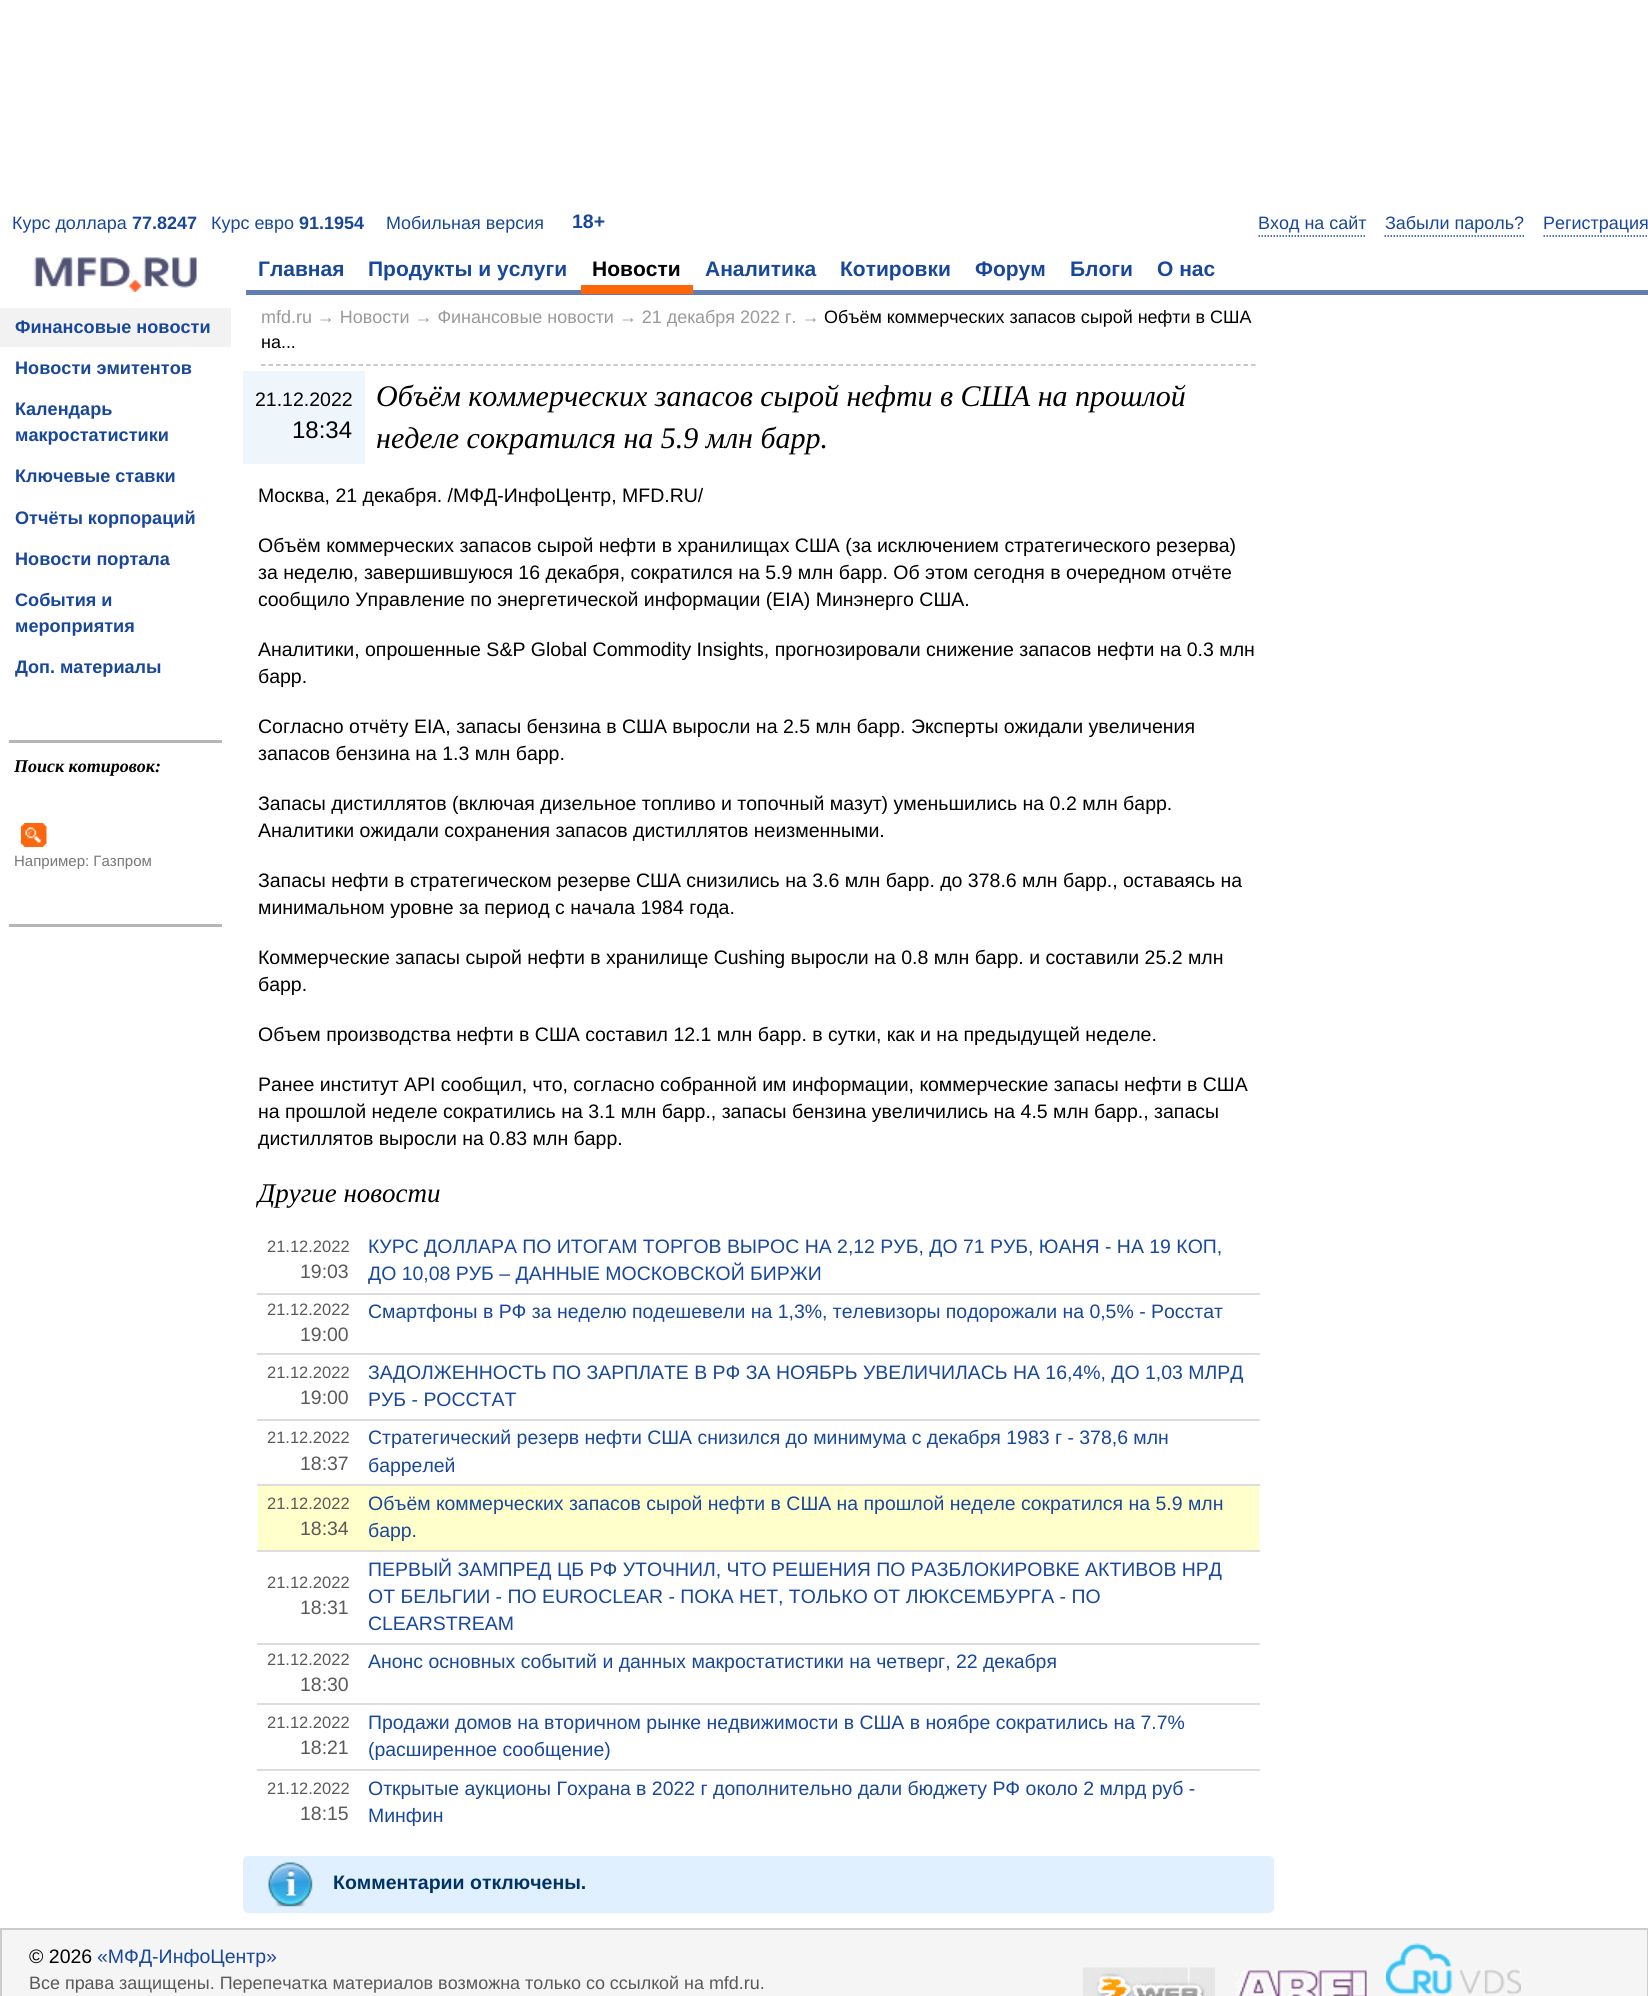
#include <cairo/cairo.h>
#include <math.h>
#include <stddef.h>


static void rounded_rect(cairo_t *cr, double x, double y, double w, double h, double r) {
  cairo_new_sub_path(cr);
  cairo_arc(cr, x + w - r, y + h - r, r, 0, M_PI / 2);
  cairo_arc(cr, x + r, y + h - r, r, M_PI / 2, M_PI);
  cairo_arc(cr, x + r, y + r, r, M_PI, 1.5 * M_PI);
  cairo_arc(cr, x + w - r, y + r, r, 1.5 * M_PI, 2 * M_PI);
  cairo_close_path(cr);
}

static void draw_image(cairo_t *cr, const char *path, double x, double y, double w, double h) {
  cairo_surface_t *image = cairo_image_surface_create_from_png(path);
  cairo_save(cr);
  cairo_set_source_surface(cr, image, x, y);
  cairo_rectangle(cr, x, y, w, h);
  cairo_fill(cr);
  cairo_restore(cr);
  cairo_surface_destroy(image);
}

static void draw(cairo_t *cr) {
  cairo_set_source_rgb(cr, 1, 1, 1);
  cairo_paint(cr);
  cairo_new_path(cr);
  cairo_move_to(cr, 1258.5, 236);
  cairo_line_to(cr, 1366.5, 236);
  cairo_set_source_rgb(cr, 24 / 255.0, 71 / 255.0, 155 / 255.0);
  cairo_set_line_width(cr, 1.5);
  cairo_set_dash(cr, (double[]){1.5, 1.5}, 2, 0);
  cairo_stroke(cr);
  cairo_new_path(cr);
  cairo_move_to(cr, 1384.5, 236);
  cairo_line_to(cr, 1524, 236);
  cairo_stroke(cr);
  cairo_new_path(cr);
  cairo_move_to(cr, 1543.5, 236);
  cairo_line_to(cr, 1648.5, 236);
  cairo_stroke(cr);
  draw_image(cr, "images/1.png", 34, 257, 163, 35);
  cairo_set_source_rgb(cr, 97 / 255.0, 125 / 255.0, 180 / 255.0);
  cairo_rectangle(cr, 246, 290, 1402, 5);
  cairo_fill(cr);
  cairo_set_source_rgb(cr, 1, 102 / 255.0, 10 / 255.0);
  cairo_rectangle(cr, 581, 285, 112, 9);
  cairo_fill(cr);
  cairo_set_source_rgb(cr, 242 / 255.0, 242 / 255.0, 242 / 255.0);
  cairo_rectangle(cr, 0, 308, 231, 39);
  cairo_fill(cr);
  cairo_set_source_rgb(cr, 182 / 255.0, 182 / 255.0, 182 / 255.0);
  cairo_rectangle(cr, 9, 740, 213, 3);
  cairo_fill(cr);
  cairo_rectangle(cr, 9, 924, 213, 3);
  cairo_fill(cr);
  draw_image(cr, "images/2.png", 21, 823, 26, 24);
  cairo_new_path(cr);
  cairo_move_to(cr, 261, 365);
  cairo_line_to(cr, 1255.5, 365);
  cairo_set_source_rgb(cr, 184 / 255.0, 184 / 255.0, 184 / 255.0);
  cairo_set_dash(cr, (double[]){4.5, 3}, 2, 0);
  cairo_stroke(cr);
  cairo_set_source_rgb(cr, 239 / 255.0, 246 / 255.0, 251 / 255.0);
  cairo_rectangle(cr, 243, 371, 122, 93);
  cairo_fill(cr);
  cairo_set_source_rgb(cr, 221 / 255.0, 221 / 255.0, 221 / 255.0);
  cairo_rectangle(cr, 257, 1293, 1003, 2);
  cairo_fill(cr);
  cairo_rectangle(cr, 257, 1353, 1003, 2);
  cairo_fill(cr);
  cairo_rectangle(cr, 257, 1419, 1003, 2);
  cairo_fill(cr);
  cairo_rectangle(cr, 257, 1484, 1003, 2);
  cairo_fill(cr);
  cairo_set_source_rgb(cr, 1, 1, 204 / 255.0);
  cairo_rectangle(cr, 258, 1486, 1001, 64);
  cairo_fill(cr);
  cairo_set_source_rgb(cr, 221 / 255.0, 221 / 255.0, 221 / 255.0);
  cairo_rectangle(cr, 257, 1550, 1003, 2);
  cairo_fill(cr);
  cairo_rectangle(cr, 257, 1643, 1003, 2);
  cairo_fill(cr);
  cairo_rectangle(cr, 257, 1703, 1003, 2);
  cairo_fill(cr);
  cairo_rectangle(cr, 257, 1769, 1003, 2);
  cairo_fill(cr);
  cairo_set_source_rgb(cr, 224 / 255.0, 240 / 255.0, 1);
  rounded_rect(cr, 243, 1856, 1031, 57, 5);
  cairo_fill(cr);
  draw_image(cr, "images/3.png", 268, 1862, 45, 45);
  cairo_set_source_rgb(cr, 245 / 255.0, 245 / 255.0, 245 / 255.0);
  cairo_rectangle(cr, 1, 1929, 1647, 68);
  cairo_fill_preserve(cr);
  cairo_set_source_rgb(cr, 204 / 255.0, 204 / 255.0, 204 / 255.0);
  cairo_set_line_width(cr, 2);
  cairo_set_dash(cr, NULL, 0, 0);
  cairo_stroke(cr);
  draw_image(cr, "images/4.png", 1083, 1967, 132, 29);
  draw_image(cr, "images/5.png", 1235, 1970, 132, 26);
  draw_image(cr, "images/6.png", 1386, 1943, 135, 52);
  cairo_select_font_face(cr, "Liberation Sans", CAIRO_FONT_SLANT_NORMAL, CAIRO_FONT_WEIGHT_NORMAL);
  cairo_set_font_size(cr, 17.95);
  cairo_set_source_rgb(cr, 24 / 255.0, 71 / 255.0, 155 / 255.0);
  cairo_move_to(cr, 12, 229);
  cairo_show_text(cr, "Курс доллара");
  cairo_select_font_face(cr, "Liberation Sans", CAIRO_FONT_SLANT_NORMAL, CAIRO_FONT_WEIGHT_BOLD);
  cairo_move_to(cr, 132, 229);
  cairo_show_text(cr, "77.8247");
  cairo_select_font_face(cr, "Liberation Sans", CAIRO_FONT_SLANT_NORMAL, CAIRO_FONT_WEIGHT_NORMAL);
  cairo_move_to(cr, 211, 229);
  cairo_show_text(cr, "Курс евро");
  cairo_select_font_face(cr, "Liberation Sans", CAIRO_FONT_SLANT_NORMAL, CAIRO_FONT_WEIGHT_BOLD);
  cairo_move_to(cr, 299, 229);
  cairo_show_text(cr, "91.1954");
  cairo_select_font_face(cr, "Liberation Sans", CAIRO_FONT_SLANT_NORMAL, CAIRO_FONT_WEIGHT_NORMAL);
  cairo_move_to(cr, 386, 229);
  cairo_show_text(cr, "Мобильная версия");
  cairo_select_font_face(cr, "Liberation Sans", CAIRO_FONT_SLANT_NORMAL, CAIRO_FONT_WEIGHT_BOLD);
  cairo_set_font_size(cr, 19.5);
  cairo_move_to(cr, 572, 228);
  cairo_show_text(cr, "18+");
  cairo_select_font_face(cr, "Liberation Sans", CAIRO_FONT_SLANT_NORMAL, CAIRO_FONT_WEIGHT_NORMAL);
  cairo_set_font_size(cr, 17.95);
  cairo_move_to(cr, 1258, 229);
  cairo_show_text(cr, "Вход на сайт");
  cairo_move_to(cr, 1385, 229);
  cairo_show_text(cr, "Забыли пароль?");
  cairo_move_to(cr, 1543, 229);
  cairo_show_text(cr, "Регистрация");
  cairo_select_font_face(cr, "Liberation Sans", CAIRO_FONT_SLANT_NORMAL, CAIRO_FONT_WEIGHT_BOLD);
  cairo_set_font_size(cr, 21);
  cairo_move_to(cr, 258, 276);
  cairo_show_text(cr, "Главная");
  cairo_move_to(cr, 368, 276);
  cairo_show_text(cr, "Продукты и услуги");
  cairo_set_source_rgb(cr, 0, 0, 0);
  cairo_move_to(cr, 592, 276);
  cairo_show_text(cr, "Новости");
  cairo_set_source_rgb(cr, 24 / 255.0, 71 / 255.0, 155 / 255.0);
  cairo_move_to(cr, 705, 276);
  cairo_show_text(cr, "Аналитика");
  cairo_move_to(cr, 840, 276);
  cairo_show_text(cr, "Котировки");
  cairo_move_to(cr, 975, 276);
  cairo_show_text(cr, "Форум");
  cairo_move_to(cr, 1070, 276);
  cairo_show_text(cr, "Блоги");
  cairo_move_to(cr, 1157, 276);
  cairo_show_text(cr, "О нас");
  cairo_set_font_size(cr, 18.1);
  cairo_move_to(cr, 15, 333);
  cairo_show_text(cr, "Финансовые новости");
  cairo_move_to(cr, 15, 374);
  cairo_show_text(cr, "Новости эмитентов");
  cairo_move_to(cr, 15, 415);
  cairo_show_text(cr, "Календарь");
  cairo_move_to(cr, 15, 441);
  cairo_show_text(cr, "макростатистики");
  cairo_move_to(cr, 15, 482);
  cairo_show_text(cr, "Ключевые ставки");
  cairo_move_to(cr, 15, 524);
  cairo_show_text(cr, "Отчёты корпораций");
  cairo_move_to(cr, 15, 565);
  cairo_show_text(cr, "Новости портала");
  cairo_move_to(cr, 15, 606);
  cairo_show_text(cr, "События и");
  cairo_move_to(cr, 15, 632);
  cairo_show_text(cr, "мероприятия");
  cairo_move_to(cr, 15, 673);
  cairo_show_text(cr, "Доп. материалы");
  cairo_select_font_face(cr, "Liberation Serif", CAIRO_FONT_SLANT_ITALIC, CAIRO_FONT_WEIGHT_BOLD);
  cairo_set_font_size(cr, 18);
  cairo_set_source_rgb(cr, 0, 0, 0);
  cairo_move_to(cr, 14, 772);
  cairo_show_text(cr, "Поиск котировок:");
  cairo_select_font_face(cr, "Liberation Sans", CAIRO_FONT_SLANT_NORMAL, CAIRO_FONT_WEIGHT_NORMAL);
  cairo_set_font_size(cr, 15);
  cairo_set_source_rgb(cr, 119 / 255.0, 119 / 255.0, 119 / 255.0);
  cairo_move_to(cr, 14, 866);
  cairo_show_text(cr, "Например: Газпром");
  cairo_set_font_size(cr, 17.95);
  cairo_set_source_rgb(cr, 153 / 255.0, 153 / 255.0, 153 / 255.0);
  cairo_move_to(cr, 261, 323);
  cairo_show_text(cr, "mfd.ru → Новости → Финансовые новости → 21 декабря 2022 г. →");
  cairo_set_source_rgb(cr, 0, 0, 0);
  cairo_move_to(cr, 824, 323);
  cairo_show_text(cr, "Объём коммерческих запасов сырой нефти в США");
  cairo_move_to(cr, 261, 348);
  cairo_show_text(cr, "на...");
  cairo_set_font_size(cr, 19.5);
  cairo_move_to(cr, 255, 406);
  cairo_show_text(cr, "21.12.2022");
  cairo_set_font_size(cr, 24);
  cairo_move_to(cr, 292, 438);
  cairo_show_text(cr, "18:34");
  cairo_select_font_face(cr, "Liberation Serif", CAIRO_FONT_SLANT_ITALIC, CAIRO_FONT_WEIGHT_NORMAL);
  cairo_set_font_size(cr, 30);
  cairo_move_to(cr, 376, 406);
  cairo_show_text(cr, "Объём коммерческих запасов сырой нефти в США на прошлой");
  cairo_move_to(cr, 376, 448);
  cairo_show_text(cr, "неделе сократился на 5.9 млн барр.");
  cairo_select_font_face(cr, "Liberation Sans", CAIRO_FONT_SLANT_NORMAL, CAIRO_FONT_WEIGHT_NORMAL);
  cairo_set_font_size(cr, 19.5);
  cairo_move_to(cr, 258, 502);
  cairo_show_text(cr, "Москва, 21 декабря. /МФД-ИнфоЦентр, MFD.RU/");
  cairo_move_to(cr, 258, 552);
  cairo_show_text(cr, "Объём коммерческих запасов сырой нефти в хранилищах США (за исключением стратегического резерва)");
  cairo_move_to(cr, 258, 579);
  cairo_show_text(cr, "за неделю, завершившуюся 16 декабря, сократился на 5.9 млн барр. Об этом сегодня в очередном отчёте");
  cairo_move_to(cr, 258, 606);
  cairo_show_text(cr, "сообщило Управление по энергетической информации (EIA) Минэнерго США.");
  cairo_move_to(cr, 258, 656);
  cairo_show_text(cr, "Аналитики, опрошенные S&P Global Commodity Insights, прогнозировали снижение запасов нефти на 0.3 млн");
  cairo_move_to(cr, 258, 683);
  cairo_show_text(cr, "барр.");
  cairo_move_to(cr, 258, 733);
  cairo_show_text(cr, "Согласно отчёту EIA, запасы бензина в США выросли на 2.5 млн барр. Эксперты ожидали увеличения");
  cairo_move_to(cr, 258, 760);
  cairo_show_text(cr, "запасов бензина на 1.3 млн барр.");
  cairo_move_to(cr, 258, 810);
  cairo_show_text(cr, "Запасы дистиллятов (включая дизельное топливо и топочный мазут) уменьшились на 0.2 млн барр.");
  cairo_move_to(cr, 258, 837);
  cairo_show_text(cr, "Аналитики ожидали сохранения запасов дистиллятов неизменными.");
  cairo_move_to(cr, 258, 887);
  cairo_show_text(cr, "Запасы нефти в стратегическом резерве США снизились на 3.6 млн барр. до 378.6 млн барр., оставаясь на");
  cairo_move_to(cr, 258, 914);
  cairo_show_text(cr, "минимальном уровне за период с начала 1984 года.");
  cairo_move_to(cr, 258, 964);
  cairo_show_text(cr, "Коммерческие запасы сырой нефти в хранилище Cushing выросли на 0.8 млн барр. и составили 25.2 млн");
  cairo_move_to(cr, 258, 991);
  cairo_show_text(cr, "барр.");
  cairo_move_to(cr, 258, 1041);
  cairo_show_text(cr, "Объем производства нефти в США составил 12.1 млн барр. в сутки, как и на предыдущей неделе.");
  cairo_move_to(cr, 258, 1091);
  cairo_show_text(cr, "Ранее институт API сообщил, что, согласно собранной им информации, коммерческие запасы нефти в США");
  cairo_move_to(cr, 258, 1118);
  cairo_show_text(cr, "на прошлой неделе сократились на 3.1 млн барр., запасы бензина увеличились на 4.5 млн барр., запасы");
  cairo_move_to(cr, 258, 1145);
  cairo_show_text(cr, "дистиллятов выросли на 0.83 млн барр.");
  cairo_select_font_face(cr, "Liberation Serif", CAIRO_FONT_SLANT_ITALIC, CAIRO_FONT_WEIGHT_NORMAL);
  cairo_set_font_size(cr, 27);
  cairo_move_to(cr, 258, 1202);
  cairo_show_text(cr, "Другие новости");
  cairo_select_font_face(cr, "Liberation Sans", CAIRO_FONT_SLANT_NORMAL, CAIRO_FONT_WEIGHT_NORMAL);
  cairo_set_font_size(cr, 16.5);
  cairo_set_source_rgb(cr, 89 / 255.0, 89 / 255.0, 89 / 255.0);
  cairo_move_to(cr, 267, 1252);
  cairo_show_text(cr, "21.12.2022");
  cairo_set_font_size(cr, 19.45);
  cairo_move_to(cr, 300, 1278);
  cairo_show_text(cr, "19:03");
  cairo_set_source_rgb(cr, 24 / 255.0, 71 / 255.0, 155 / 255.0);
  cairo_move_to(cr, 368, 1253);
  cairo_show_text(cr, "КУРС ДОЛЛАРА ПО ИТОГАМ ТОРГОВ ВЫРОС НА 2,12 РУБ, ДО 71 РУБ, ЮАНЯ - НА 19 КОП,");
  cairo_move_to(cr, 368, 1280);
  cairo_show_text(cr, "ДО 10,08 РУБ – ДАННЫЕ МОСКОВСКОЙ БИРЖИ");
  cairo_set_font_size(cr, 16.5);
  cairo_set_source_rgb(cr, 89 / 255.0, 89 / 255.0, 89 / 255.0);
  cairo_move_to(cr, 267, 1315);
  cairo_show_text(cr, "21.12.2022");
  cairo_set_font_size(cr, 19.45);
  cairo_move_to(cr, 300, 1341);
  cairo_show_text(cr, "19:00");
  cairo_set_source_rgb(cr, 24 / 255.0, 71 / 255.0, 155 / 255.0);
  cairo_move_to(cr, 368, 1318);
  cairo_show_text(cr, "Смартфоны в РФ за неделю подешевели на 1,3%, телевизоры подорожали на 0,5% - Росстат");
  cairo_set_font_size(cr, 16.5);
  cairo_set_source_rgb(cr, 89 / 255.0, 89 / 255.0, 89 / 255.0);
  cairo_move_to(cr, 267, 1378);
  cairo_show_text(cr, "21.12.2022");
  cairo_set_font_size(cr, 19.45);
  cairo_move_to(cr, 300, 1404);
  cairo_show_text(cr, "19:00");
  cairo_set_source_rgb(cr, 24 / 255.0, 71 / 255.0, 155 / 255.0);
  cairo_move_to(cr, 368, 1379);
  cairo_show_text(cr, "ЗАДОЛЖЕННОСТЬ ПО ЗАРПЛАТЕ В РФ ЗА НОЯБРЬ УВЕЛИЧИЛАСЬ НА 16,4%, ДО 1,03 МЛРД");
  cairo_move_to(cr, 368, 1406);
  cairo_show_text(cr, "РУБ - РОССТАТ");
  cairo_set_font_size(cr, 16.5);
  cairo_set_source_rgb(cr, 89 / 255.0, 89 / 255.0, 89 / 255.0);
  cairo_move_to(cr, 267, 1443);
  cairo_show_text(cr, "21.12.2022");
  cairo_set_font_size(cr, 19.45);
  cairo_move_to(cr, 300, 1470);
  cairo_show_text(cr, "18:37");
  cairo_set_source_rgb(cr, 24 / 255.0, 71 / 255.0, 155 / 255.0);
  cairo_move_to(cr, 368, 1444);
  cairo_show_text(cr, "Стратегический резерв нефти США снизился до минимума с декабря 1983 г - 378,6 млн");
  cairo_move_to(cr, 368, 1472);
  cairo_show_text(cr, "баррелей");
  cairo_set_font_size(cr, 16.5);
  cairo_set_source_rgb(cr, 89 / 255.0, 89 / 255.0, 89 / 255.0);
  cairo_move_to(cr, 267, 1509);
  cairo_show_text(cr, "21.12.2022");
  cairo_set_font_size(cr, 19.45);
  cairo_move_to(cr, 300, 1535);
  cairo_show_text(cr, "18:34");
  cairo_set_source_rgb(cr, 24 / 255.0, 71 / 255.0, 155 / 255.0);
  cairo_move_to(cr, 368, 1510);
  cairo_show_text(cr, "Объём коммерческих запасов сырой нефти в США на прошлой неделе сократился на 5.9 млн");
  cairo_move_to(cr, 368, 1537);
  cairo_show_text(cr, "барр.");
  cairo_set_font_size(cr, 16.5);
  cairo_set_source_rgb(cr, 89 / 255.0, 89 / 255.0, 89 / 255.0);
  cairo_move_to(cr, 267, 1588);
  cairo_show_text(cr, "21.12.2022");
  cairo_set_font_size(cr, 19.45);
  cairo_move_to(cr, 300, 1614);
  cairo_show_text(cr, "18:31");
  cairo_set_source_rgb(cr, 24 / 255.0, 71 / 255.0, 155 / 255.0);
  cairo_move_to(cr, 368, 1576);
  cairo_show_text(cr, "ПЕРВЫЙ ЗАМПРЕД ЦБ РФ УТОЧНИЛ, ЧТО РЕШЕНИЯ ПО РАЗБЛОКИРОВКЕ АКТИВОВ НРД");
  cairo_move_to(cr, 368, 1603);
  cairo_show_text(cr, "ОТ БЕЛЬГИИ - ПО EUROCLEAR - ПОКА НЕТ, ТОЛЬКО ОТ ЛЮКСЕМБУРГА - ПО");
  cairo_move_to(cr, 368, 1630);
  cairo_show_text(cr, "CLEARSTREAM");
  cairo_set_font_size(cr, 16.5);
  cairo_set_source_rgb(cr, 89 / 255.0, 89 / 255.0, 89 / 255.0);
  cairo_move_to(cr, 267, 1665);
  cairo_show_text(cr, "21.12.2022");
  cairo_set_font_size(cr, 19.45);
  cairo_move_to(cr, 300, 1691);
  cairo_show_text(cr, "18:30");
  cairo_set_source_rgb(cr, 24 / 255.0, 71 / 255.0, 155 / 255.0);
  cairo_move_to(cr, 368, 1668);
  cairo_show_text(cr, "Анонс основных событий и данных макростатистики на четверг, 22 декабря");
  cairo_set_font_size(cr, 16.5);
  cairo_set_source_rgb(cr, 89 / 255.0, 89 / 255.0, 89 / 255.0);
  cairo_move_to(cr, 267, 1728);
  cairo_show_text(cr, "21.12.2022");
  cairo_set_font_size(cr, 19.45);
  cairo_move_to(cr, 300, 1754);
  cairo_show_text(cr, "18:21");
  cairo_set_source_rgb(cr, 24 / 255.0, 71 / 255.0, 155 / 255.0);
  cairo_move_to(cr, 368, 1729);
  cairo_show_text(cr, "Продажи домов на вторичном рынке недвижимости в США в ноябре сократились на 7.7%");
  cairo_move_to(cr, 368, 1756);
  cairo_show_text(cr, "(расширенное сообщение)");
  cairo_set_font_size(cr, 16.5);
  cairo_set_source_rgb(cr, 89 / 255.0, 89 / 255.0, 89 / 255.0);
  cairo_move_to(cr, 267, 1794);
  cairo_show_text(cr, "21.12.2022");
  cairo_set_font_size(cr, 19.45);
  cairo_move_to(cr, 300, 1820);
  cairo_show_text(cr, "18:15");
  cairo_set_source_rgb(cr, 24 / 255.0, 71 / 255.0, 155 / 255.0);
  cairo_move_to(cr, 368, 1795);
  cairo_show_text(cr, "Открытые аукционы Гохрана в 2022 г дополнительно дали бюджету РФ около 2 млрд руб -");
  cairo_move_to(cr, 368, 1822);
  cairo_show_text(cr, "Минфин");
  cairo_select_font_face(cr, "Liberation Sans", CAIRO_FONT_SLANT_NORMAL, CAIRO_FONT_WEIGHT_BOLD);
  cairo_set_font_size(cr, 19.5);
  cairo_set_source_rgb(cr, 0, 51 / 255.0, 102 / 255.0);
  cairo_move_to(cr, 333, 1889);
  cairo_show_text(cr, "Комментарии отключены.");
  cairo_select_font_face(cr, "Liberation Sans", CAIRO_FONT_SLANT_NORMAL, CAIRO_FONT_WEIGHT_NORMAL);
  cairo_set_source_rgb(cr, 0, 0, 0);
  cairo_move_to(cr, 29, 1963);
  cairo_show_text(cr, "© 2026");
  cairo_set_source_rgb(cr, 24 / 255.0, 71 / 255.0, 155 / 255.0);
  cairo_move_to(cr, 97, 1963);
  cairo_show_text(cr, "«МФД-ИнфоЦентр»");
  cairo_set_font_size(cr, 17.95);
  cairo_set_source_rgb(cr, 89 / 255.0, 89 / 255.0, 89 / 255.0);
  cairo_move_to(cr, 29, 1989);
  cairo_show_text(cr, "Все права защищены. Перепечатка материалов возможна только со ссылкой на mfd.ru.");
}

int main(void) {
  cairo_surface_t *surface = cairo_image_surface_create(CAIRO_FORMAT_RGB24, 1648, 1996);
  cairo_t *cr = cairo_create(surface);
  cairo_font_options_t *options = cairo_font_options_create();
  cairo_font_options_set_hint_metrics(options, CAIRO_HINT_METRICS_OFF);
  cairo_font_options_set_hint_style(options, CAIRO_HINT_STYLE_NONE);
  cairo_set_font_options(cr, options);
  cairo_set_miter_limit(cr, 4);
  draw(cr);
  cairo_surface_write_to_png(surface, "out.png");
  cairo_font_options_destroy(options);
  cairo_destroy(cr);
  cairo_surface_destroy(surface);
  return 0;
}
